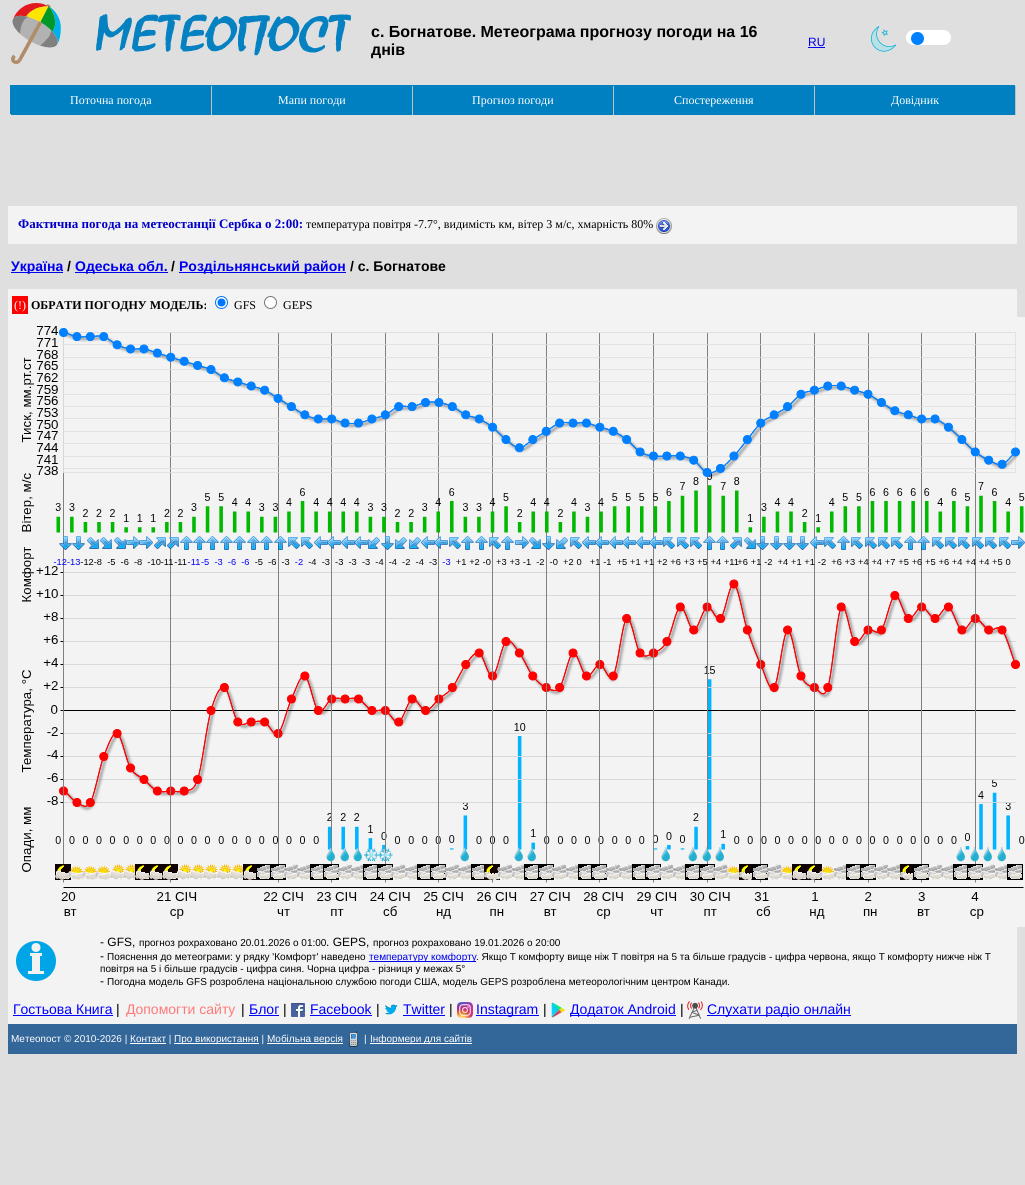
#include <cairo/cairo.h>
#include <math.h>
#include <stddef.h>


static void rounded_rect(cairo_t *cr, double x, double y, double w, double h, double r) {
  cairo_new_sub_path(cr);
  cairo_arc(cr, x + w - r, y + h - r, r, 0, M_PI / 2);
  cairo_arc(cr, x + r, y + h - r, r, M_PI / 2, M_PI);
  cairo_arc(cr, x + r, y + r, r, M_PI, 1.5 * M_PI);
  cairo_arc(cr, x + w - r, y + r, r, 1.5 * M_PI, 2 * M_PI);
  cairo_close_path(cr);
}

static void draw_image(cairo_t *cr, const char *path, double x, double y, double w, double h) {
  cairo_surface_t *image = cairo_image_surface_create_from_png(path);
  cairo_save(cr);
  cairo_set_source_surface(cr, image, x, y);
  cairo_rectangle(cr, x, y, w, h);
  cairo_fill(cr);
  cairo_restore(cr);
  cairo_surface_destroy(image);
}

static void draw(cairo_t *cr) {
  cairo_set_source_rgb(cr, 223 / 255.0, 223 / 255.0, 223 / 255.0);
  cairo_paint(cr);
  draw_image(cr, "images/1.png", 11, 3, 340, 61);
  cairo_set_source_rgb(cr, 0, 0, 238 / 255.0);
  cairo_rectangle(cr, 808, 47, 17, 1);
  cairo_fill(cr);
  draw_image(cr, "images/2.png", 871, 26, 25, 26);
  cairo_set_source_rgb(cr, 1, 1, 1);
  rounded_rect(cr, 906, 30, 45, 15, 7.5);
  cairo_fill(cr);
  cairo_set_source_rgb(cr, 0, 128 / 255.0, 1);
  cairo_arc(cr, 917.5, 38.5, 6.5, 0, 2 * M_PI);
  cairo_fill(cr);
  cairo_set_source_rgb(cr, 0, 128 / 255.0, 192 / 255.0);
  cairo_rectangle(cr, 10, 85, 1005, 29);
  cairo_fill(cr);
  cairo_rectangle(cr, 11, 114, 200, 1);
  cairo_fill(cr);
  cairo_set_source_rgb(cr, 192 / 255.0, 192 / 255.0, 192 / 255.0);
  cairo_rectangle(cr, 211, 86, 1, 29);
  cairo_fill(cr);
  cairo_set_source_rgb(cr, 0, 128 / 255.0, 192 / 255.0);
  cairo_rectangle(cr, 212, 114, 200, 1);
  cairo_fill(cr);
  cairo_set_source_rgb(cr, 192 / 255.0, 192 / 255.0, 192 / 255.0);
  cairo_rectangle(cr, 412, 86, 1, 29);
  cairo_fill(cr);
  cairo_set_source_rgb(cr, 0, 128 / 255.0, 192 / 255.0);
  cairo_rectangle(cr, 413, 114, 200, 1);
  cairo_fill(cr);
  cairo_set_source_rgb(cr, 192 / 255.0, 192 / 255.0, 192 / 255.0);
  cairo_rectangle(cr, 613, 86, 1, 29);
  cairo_fill(cr);
  cairo_set_source_rgb(cr, 0, 128 / 255.0, 192 / 255.0);
  cairo_rectangle(cr, 614, 114, 200, 1);
  cairo_fill(cr);
  cairo_set_source_rgb(cr, 192 / 255.0, 192 / 255.0, 192 / 255.0);
  cairo_rectangle(cr, 814, 86, 1, 29);
  cairo_fill(cr);
  cairo_set_source_rgb(cr, 0, 128 / 255.0, 192 / 255.0);
  cairo_rectangle(cr, 815, 114, 200, 1);
  cairo_fill(cr);
  cairo_set_source_rgb(cr, 192 / 255.0, 192 / 255.0, 192 / 255.0);
  cairo_rectangle(cr, 1015, 86, 1, 29);
  cairo_fill(cr);
  cairo_set_source_rgb(cr, 243 / 255.0, 243 / 255.0, 243 / 255.0);
  cairo_rectangle(cr, 8, 206, 1009, 38);
  cairo_fill(cr);
  draw_image(cr, "images/3.png", 656, 218, 16, 16);
  cairo_set_source_rgb(cr, 0, 0, 238 / 255.0);
  cairo_rectangle(cr, 11, 272, 52, 1);
  cairo_fill(cr);
  cairo_rectangle(cr, 75, 272, 93, 1);
  cairo_fill(cr);
  cairo_rectangle(cr, 179, 272, 167, 1);
  cairo_fill(cr);
  cairo_set_source_rgb(cr, 243 / 255.0, 243 / 255.0, 243 / 255.0);
  cairo_rectangle(cr, 8, 289, 1009, 28);
  cairo_fill(cr);
  cairo_set_source_rgb(cr, 1, 0, 0);
  cairo_rectangle(cr, 12, 296, 16, 18);
  cairo_fill(cr);
  cairo_set_source_rgb(cr, 1, 1, 1);
  cairo_arc(cr, 221.5, 302.5, 6, 0, 2 * M_PI);
  cairo_fill_preserve(cr);
  cairo_set_source_rgb(cr, 0, 117 / 255.0, 1);
  cairo_set_line_width(cr, 1);
  cairo_stroke(cr);
  cairo_arc(cr, 221.5, 302.5, 4, 0, 2 * M_PI);
  cairo_fill(cr);
  cairo_set_source_rgb(cr, 1, 1, 1);
  cairo_arc(cr, 270.5, 302.5, 6, 0, 2 * M_PI);
  cairo_fill_preserve(cr);
  cairo_set_source_rgb(cr, 118 / 255.0, 118 / 255.0, 118 / 255.0);
  cairo_stroke(cr);
  cairo_set_source_rgb(cr, 243 / 255.0, 243 / 255.0, 243 / 255.0);
  cairo_rectangle(cr, 8, 317, 1017, 610);
  cairo_fill(cr);
  draw_image(cr, "images/4.png", 22, 326, 1003, 593);
  draw_image(cr, "images/5.png", 59, 536, 13, 14);
  draw_image(cr, "images/6.png", 72, 536, 13, 14);
  draw_image(cr, "images/7.png", 87, 537, 12, 12);
  draw_image(cr, "images/7.png", 100, 537, 12, 12);
  draw_image(cr, "images/7.png", 114, 537, 12, 12);
  draw_image(cr, "images/8.png", 126, 536, 14, 13);
  draw_image(cr, "images/9.png", 139, 536, 14, 13);
  draw_image(cr, "images/10.png", 154, 537, 12, 12);
  draw_image(cr, "images/11.png", 167, 537, 12, 12);
  draw_image(cr, "images/12.png", 180, 536, 13, 14);
  draw_image(cr, "images/12.png", 193, 536, 13, 14);
  draw_image(cr, "images/12.png", 206, 536, 13, 14);
  draw_image(cr, "images/12.png", 220, 536, 13, 14);
  draw_image(cr, "images/12.png", 233, 536, 13, 14);
  draw_image(cr, "images/12.png", 247, 536, 13, 14);
  draw_image(cr, "images/12.png", 260, 536, 13, 14);
  draw_image(cr, "images/13.png", 274, 536, 13, 14);
  draw_image(cr, "images/14.png", 288, 537, 12, 12);
  draw_image(cr, "images/14.png", 301, 537, 12, 12);
  draw_image(cr, "images/15.png", 314, 536, 14, 13);
  draw_image(cr, "images/16.png", 327, 536, 14, 13);
  draw_image(cr, "images/15.png", 341, 536, 14, 13);
  draw_image(cr, "images/17.png", 354, 536, 14, 13);
  draw_image(cr, "images/18.png", 368, 537, 12, 12);
  draw_image(cr, "images/5.png", 381, 536, 13, 14);
  draw_image(cr, "images/18.png", 395, 537, 12, 12);
  draw_image(cr, "images/18.png", 409, 537, 12, 12);
  draw_image(cr, "images/15.png", 421, 536, 14, 13);
  draw_image(cr, "images/16.png", 434, 536, 14, 13);
  draw_image(cr, "images/14.png", 449, 537, 12, 12);
  draw_image(cr, "images/12.png", 461, 536, 13, 14);
  draw_image(cr, "images/12.png", 475, 536, 13, 14);
  draw_image(cr, "images/19.png", 489, 537, 12, 12);
  draw_image(cr, "images/12.png", 501, 536, 13, 14);
  draw_image(cr, "images/8.png", 515, 536, 14, 13);
  draw_image(cr, "images/7.png", 529, 537, 12, 12);
  draw_image(cr, "images/5.png", 542, 536, 13, 14);
  draw_image(cr, "images/18.png", 556, 537, 12, 12);
  draw_image(cr, "images/14.png", 570, 537, 12, 12);
  draw_image(cr, "images/15.png", 582, 536, 14, 13);
  draw_image(cr, "images/16.png", 595, 536, 14, 13);
  draw_image(cr, "images/15.png", 609, 536, 14, 13);
  draw_image(cr, "images/17.png", 622, 536, 14, 13);
  draw_image(cr, "images/15.png", 636, 536, 14, 13);
  draw_image(cr, "images/16.png", 649, 536, 14, 13);
  draw_image(cr, "images/14.png", 663, 537, 12, 12);
  draw_image(cr, "images/14.png", 677, 537, 12, 12);
  draw_image(cr, "images/14.png", 690, 537, 12, 12);
  draw_image(cr, "images/13.png", 703, 536, 13, 14);
  draw_image(cr, "images/12.png", 716, 536, 13, 14);
  draw_image(cr, "images/10.png", 730, 537, 12, 12);
  draw_image(cr, "images/7.png", 744, 537, 12, 12);
  draw_image(cr, "images/5.png", 756, 536, 13, 14);
  draw_image(cr, "images/6.png", 770, 536, 13, 14);
  draw_image(cr, "images/6.png", 783, 536, 13, 14);
  draw_image(cr, "images/6.png", 796, 536, 13, 14);
  draw_image(cr, "images/20.png", 810, 536, 14, 13);
  draw_image(cr, "images/14.png", 824, 537, 12, 12);
  draw_image(cr, "images/12.png", 837, 536, 13, 14);
  draw_image(cr, "images/14.png", 851, 537, 12, 12);
  draw_image(cr, "images/19.png", 865, 537, 12, 12);
  draw_image(cr, "images/14.png", 878, 537, 12, 12);
  draw_image(cr, "images/14.png", 891, 537, 12, 12);
  draw_image(cr, "images/12.png", 904, 536, 13, 14);
  draw_image(cr, "images/13.png", 917, 536, 13, 14);
  draw_image(cr, "images/14.png", 932, 537, 12, 12);
  draw_image(cr, "images/14.png", 945, 537, 12, 12);
  draw_image(cr, "images/14.png", 958, 537, 12, 12);
  draw_image(cr, "images/19.png", 972, 537, 12, 12);
  draw_image(cr, "images/14.png", 985, 537, 12, 12);
  draw_image(cr, "images/14.png", 999, 537, 12, 12);
  draw_image(cr, "images/8.png", 1011, 536, 14, 13);
  draw_image(cr, "images/21.png", 326, 847, 9, 15);
  draw_image(cr, "images/22.png", 340, 847, 9, 15);
  draw_image(cr, "images/23.png", 353, 847, 9, 15);
  draw_image(cr, "images/24.png", 364, 848, 15, 14);
  draw_image(cr, "images/25.png", 378, 848, 15, 14);
  draw_image(cr, "images/26.png", 460, 847, 9, 15);
  draw_image(cr, "images/27.png", 514, 847, 9, 15);
  draw_image(cr, "images/28.png", 527, 847, 9, 15);
  draw_image(cr, "images/29.png", 661, 847, 9, 15);
  draw_image(cr, "images/30.png", 688, 847, 9, 15);
  draw_image(cr, "images/31.png", 702, 847, 9, 15);
  draw_image(cr, "images/32.png", 715, 847, 9, 15);
  draw_image(cr, "images/33.png", 956, 847, 9, 15);
  draw_image(cr, "images/34.png", 970, 847, 9, 15);
  draw_image(cr, "images/33.png", 983, 847, 9, 15);
  draw_image(cr, "images/33.png", 997, 847, 9, 15);
  draw_image(cr, "images/35.png", 55, 864, 16, 16);
  draw_image(cr, "images/36.png", 68, 865, 16, 15);
  draw_image(cr, "images/37.png", 82, 865, 16, 15);
  draw_image(cr, "images/38.png", 95, 865, 16, 15);
  draw_image(cr, "images/39.png", 109, 864, 16, 16);
  draw_image(cr, "images/40.png", 122, 864, 13, 16);
  draw_image(cr, "images/41.png", 135, 864, 14, 16);
  draw_image(cr, "images/42.png", 149, 864, 13, 16);
  draw_image(cr, "images/35.png", 162, 864, 16, 16);
  draw_image(cr, "images/43.png", 176, 864, 16, 16);
  draw_image(cr, "images/44.png", 189, 864, 16, 16);
  draw_image(cr, "images/44.png", 202, 864, 16, 16);
  draw_image(cr, "images/45.png", 216, 864, 16, 16);
  draw_image(cr, "images/46.png", 229, 864, 14, 16);
  draw_image(cr, "images/47.png", 243, 864, 15, 16);
  draw_image(cr, "images/48.png", 256, 864, 16, 16);
  draw_image(cr, "images/49.png", 270, 864, 16, 16);
  draw_image(cr, "images/50.png", 283, 864, 16, 16);
  draw_image(cr, "images/51.png", 296, 864, 16, 16);
  draw_image(cr, "images/52.png", 310, 864, 15, 16);
  draw_image(cr, "images/53.png", 323, 864, 16, 16);
  draw_image(cr, "images/54.png", 337, 864, 16, 16);
  draw_image(cr, "images/55.png", 350, 864, 15, 16);
  draw_image(cr, "images/53.png", 363, 864, 16, 16);
  draw_image(cr, "images/49.png", 377, 864, 16, 16);
  draw_image(cr, "images/50.png", 390, 864, 16, 16);
  draw_image(cr, "images/56.png", 404, 864, 15, 16);
  draw_image(cr, "images/57.png", 417, 864, 15, 16);
  draw_image(cr, "images/53.png", 430, 864, 16, 16);
  draw_image(cr, "images/54.png", 444, 864, 16, 16);
  draw_image(cr, "images/51.png", 457, 864, 16, 16);
  draw_image(cr, "images/58.png", 471, 864, 13, 16);
  draw_image(cr, "images/59.png", 484, 864, 16, 16);
  draw_image(cr, "images/60.png", 497, 864, 16, 16);
  draw_image(cr, "images/56.png", 511, 864, 15, 16);
  draw_image(cr, "images/53.png", 524, 864, 16, 16);
  draw_image(cr, "images/49.png", 538, 864, 16, 16);
  draw_image(cr, "images/50.png", 551, 864, 16, 16);
  draw_image(cr, "images/56.png", 565, 864, 15, 16);
  draw_image(cr, "images/57.png", 578, 864, 15, 16);
  draw_image(cr, "images/53.png", 591, 864, 16, 16);
  draw_image(cr, "images/54.png", 605, 864, 16, 16);
  draw_image(cr, "images/51.png", 618, 864, 16, 16);
  draw_image(cr, "images/52.png", 632, 864, 15, 16);
  draw_image(cr, "images/53.png", 645, 864, 16, 16);
  draw_image(cr, "images/50.png", 658, 864, 16, 16);
  draw_image(cr, "images/56.png", 672, 864, 15, 16);
  draw_image(cr, "images/53.png", 685, 864, 16, 16);
  draw_image(cr, "images/49.png", 699, 864, 16, 16);
  draw_image(cr, "images/50.png", 712, 864, 16, 16);
  draw_image(cr, "images/61.png", 725, 865, 14, 15);
  draw_image(cr, "images/62.png", 739, 864, 15, 16);
  draw_image(cr, "images/48.png", 752, 864, 16, 16);
  draw_image(cr, "images/54.png", 766, 864, 16, 16);
  draw_image(cr, "images/63.png", 779, 865, 13, 15);
  draw_image(cr, "images/41.png", 792, 864, 14, 16);
  draw_image(cr, "images/35.png", 806, 864, 16, 16);
  draw_image(cr, "images/36.png", 819, 865, 16, 15);
  draw_image(cr, "images/64.png", 833, 864, 15, 16);
  draw_image(cr, "images/53.png", 846, 864, 16, 16);
  draw_image(cr, "images/49.png", 860, 864, 16, 16);
  draw_image(cr, "images/50.png", 873, 864, 16, 16);
  draw_image(cr, "images/65.png", 886, 864, 14, 16);
  draw_image(cr, "images/62.png", 900, 864, 15, 16);
  draw_image(cr, "images/48.png", 913, 864, 16, 16);
  draw_image(cr, "images/54.png", 927, 864, 16, 16);
  draw_image(cr, "images/55.png", 940, 864, 15, 16);
  draw_image(cr, "images/53.png", 953, 864, 16, 16);
  draw_image(cr, "images/49.png", 967, 864, 16, 16);
  draw_image(cr, "images/50.png", 980, 864, 16, 16);
  draw_image(cr, "images/56.png", 994, 864, 15, 16);
  draw_image(cr, "images/53.png", 1007, 864, 16, 16);
  cairo_rectangle(cr, 8, 927, 1009, 97);
  cairo_fill(cr);
  cairo_set_source_rgb(cr, 0, 165 / 255.0, 232 / 255.0);
  cairo_arc(cr, 36, 961, 20, 0, 2 * M_PI);
  cairo_fill(cr);
  cairo_set_source_rgb(cr, 242 / 255.0, 242 / 255.0, 242 / 255.0);
  cairo_arc(cr, 36, 947.5, 4.5, 0, 2 * M_PI);
  cairo_fill(cr);
  cairo_rectangle(cr, 32, 954, 8, 17);
  cairo_fill(cr);
  cairo_rectangle(cr, 30, 953, 12, 3);
  cairo_fill(cr);
  cairo_rectangle(cr, 28, 971, 16, 3);
  cairo_fill(cr);
  cairo_set_source_rgb(cr, 0, 0, 238 / 255.0);
  cairo_rectangle(cr, 369, 961, 107, 1);
  cairo_fill(cr);
  cairo_set_source_rgb(cr, 51 / 255.0, 102 / 255.0, 153 / 255.0);
  cairo_rectangle(cr, 8, 1024, 1009, 30);
  cairo_fill(cr);
  cairo_set_source_rgb(cr, 0, 0, 1);
  cairo_rectangle(cr, 13, 1015, 100, 1);
  cairo_fill(cr);
  cairo_rectangle(cr, 249, 1015, 30, 1);
  cairo_fill(cr);
  draw_image(cr, "images/66.png", 291, 1003, 14, 14);
  cairo_rectangle(cr, 310, 1015, 62, 1);
  cairo_fill(cr);
  draw_image(cr, "images/67.png", 385, 1004, 13, 11);
  cairo_rectangle(cr, 403, 1015, 42, 1);
  cairo_fill(cr);
  draw_image(cr, "images/68.png", 457, 1002, 16, 16);
  cairo_rectangle(cr, 476, 1015, 63, 1);
  cairo_fill(cr);
  draw_image(cr, "images/69.png", 551, 1002, 14, 16);
  cairo_rectangle(cr, 570, 1015, 106, 1);
  cairo_fill(cr);
  draw_image(cr, "images/70.png", 687, 1001, 16, 18);
  cairo_rectangle(cr, 707, 1015, 144, 1);
  cairo_fill(cr);
  cairo_set_source_rgb(cr, 1, 1, 1);
  cairo_rectangle(cr, 174, 1043, 85, 1);
  cairo_fill(cr);
  cairo_rectangle(cr, 267, 1043, 76, 1);
  cairo_fill(cr);
  draw_image(cr, "images/71.png", 349, 1031, 9, 16);
  cairo_rectangle(cr, 370, 1043, 102, 1);
  cairo_fill(cr);
  cairo_rectangle(cr, 130, 1043, 36, 1);
  cairo_fill(cr);
  cairo_select_font_face(cr, "Liberation Sans", CAIRO_FONT_SLANT_NORMAL, CAIRO_FONT_WEIGHT_BOLD);
  cairo_set_font_size(cr, 16);
  cairo_set_source_rgb(cr, 0, 0, 0);
  cairo_move_to(cr, 371, 37);
  cairo_show_text(cr, "с. Богнатове. Метеограма прогнозу погоди на 16");
  cairo_move_to(cr, 371, 55);
  cairo_show_text(cr, "днів");
  cairo_select_font_face(cr, "Liberation Sans", CAIRO_FONT_SLANT_NORMAL, CAIRO_FONT_WEIGHT_NORMAL);
  cairo_set_font_size(cr, 12);
  cairo_set_source_rgb(cr, 0, 0, 238 / 255.0);
  cairo_move_to(cr, 808, 46);
  cairo_show_text(cr, "RU");
  cairo_select_font_face(cr, "Liberation Serif", CAIRO_FONT_SLANT_NORMAL, CAIRO_FONT_WEIGHT_NORMAL);
  cairo_set_source_rgb(cr, 1, 1, 1);
  cairo_move_to(cr, 70, 104);
  cairo_show_text(cr, "Поточна погода");
  cairo_move_to(cr, 278, 104);
  cairo_show_text(cr, "Мапи погоди");
  cairo_move_to(cr, 472, 104);
  cairo_show_text(cr, "Прогноз погоди");
  cairo_move_to(cr, 674, 104);
  cairo_show_text(cr, "Спостереження");
  cairo_move_to(cr, 891, 104);
  cairo_show_text(cr, "Довідник");
  cairo_select_font_face(cr, "Liberation Serif", CAIRO_FONT_SLANT_NORMAL, CAIRO_FONT_WEIGHT_BOLD);
  cairo_set_font_size(cr, 13);
  cairo_set_source_rgb(cr, 0, 0, 202 / 255.0);
  cairo_move_to(cr, 18, 228);
  cairo_show_text(cr, "Фактична погода на метеостанції Сербка о 2:00:");
  cairo_select_font_face(cr, "Liberation Serif", CAIRO_FONT_SLANT_NORMAL, CAIRO_FONT_WEIGHT_NORMAL);
  cairo_set_font_size(cr, 12);
  cairo_set_source_rgb(cr, 0, 0, 0);
  cairo_move_to(cr, 306, 228);
  cairo_show_text(cr, "температура повітря -7.7°, видимість км, вітер 3 м/с, хмарність 80%");
  cairo_select_font_face(cr, "Liberation Sans", CAIRO_FONT_SLANT_NORMAL, CAIRO_FONT_WEIGHT_BOLD);
  cairo_set_font_size(cr, 14);
  cairo_set_source_rgb(cr, 0, 0, 238 / 255.0);
  cairo_move_to(cr, 11, 271);
  cairo_show_text(cr, "Україна");
  cairo_set_source_rgb(cr, 0, 0, 0);
  cairo_move_to(cr, 67, 271);
  cairo_show_text(cr, "/");
  cairo_set_source_rgb(cr, 0, 0, 238 / 255.0);
  cairo_move_to(cr, 75, 271);
  cairo_show_text(cr, "Одеська обл.");
  cairo_set_source_rgb(cr, 0, 0, 0);
  cairo_move_to(cr, 171, 271);
  cairo_show_text(cr, "/");
  cairo_set_source_rgb(cr, 0, 0, 238 / 255.0);
  cairo_move_to(cr, 179, 271);
  cairo_show_text(cr, "Роздільнянський район");
  cairo_set_source_rgb(cr, 0, 0, 0);
  cairo_move_to(cr, 350, 271);
  cairo_show_text(cr, "/ с. Богнатове");
  cairo_select_font_face(cr, "Liberation Serif", CAIRO_FONT_SLANT_NORMAL, CAIRO_FONT_WEIGHT_NORMAL);
  cairo_set_font_size(cr, 12);
  cairo_set_source_rgb(cr, 1, 1, 1);
  cairo_move_to(cr, 14, 309);
  cairo_show_text(cr, "(!)");
  cairo_select_font_face(cr, "Liberation Serif", CAIRO_FONT_SLANT_NORMAL, CAIRO_FONT_WEIGHT_BOLD);
  cairo_set_source_rgb(cr, 0, 0, 0);
  cairo_move_to(cr, 31, 309);
  cairo_show_text(cr, "ОБРАТИ ПОГОДНУ МОДЕЛЬ:");
  cairo_select_font_face(cr, "Liberation Serif", CAIRO_FONT_SLANT_NORMAL, CAIRO_FONT_WEIGHT_NORMAL);
  cairo_move_to(cr, 234, 309);
  cairo_show_text(cr, "GFS");
  cairo_move_to(cr, 283, 309);
  cairo_show_text(cr, "GEPS");
  cairo_select_font_face(cr, "Liberation Sans", CAIRO_FONT_SLANT_NORMAL, CAIRO_FONT_WEIGHT_NORMAL);
  cairo_move_to(cr, 100, 946);
  cairo_show_text(cr, "- GFS,");
  cairo_set_font_size(cr, 10);
  cairo_move_to(cr, 139, 946);
  cairo_show_text(cr, "прогноз рохраховано 20.01.2026 о 01:00");
  cairo_set_font_size(cr, 12);
  cairo_move_to(cr, 326, 946);
  cairo_show_text(cr, ". GEPS,");
  cairo_set_font_size(cr, 10);
  cairo_move_to(cr, 373, 946);
  cairo_show_text(cr, "прогноз рохраховано 19.01.2026 о 20:00");
  cairo_set_font_size(cr, 12);
  cairo_move_to(cr, 100, 960);
  cairo_show_text(cr, "-");
  cairo_set_font_size(cr, 10);
  cairo_move_to(cr, 107, 960);
  cairo_show_text(cr, "Пояснення до метеограми: у рядку 'Комфорт' наведено");
  cairo_set_source_rgb(cr, 0, 0, 238 / 255.0);
  cairo_move_to(cr, 369, 960);
  cairo_show_text(cr, "температуру комфорту");
  cairo_set_source_rgb(cr, 0, 0, 0);
  cairo_move_to(cr, 476, 960);
  cairo_show_text(cr, ". Якщо T комфорту вище ніж T повітря на 5 та більше градусів - цифра червона, якщо T комфорту нижче ніж T");
  cairo_move_to(cr, 100, 972);
  cairo_show_text(cr, "повітря на 5 і більше градусів - цифра синя. Чорна цифра - різниця у межах 5°");
  cairo_set_font_size(cr, 12);
  cairo_move_to(cr, 100, 985);
  cairo_show_text(cr, "-");
  cairo_set_font_size(cr, 10);
  cairo_move_to(cr, 107, 985);
  cairo_show_text(cr, "Погодна модель GFS розроблена національною службою погоди США, модель GEPS розроблена метеорологічним центром Канади.");
  cairo_set_font_size(cr, 14);
  cairo_set_source_rgb(cr, 0, 0, 1);
  cairo_move_to(cr, 13, 1014);
  cairo_show_text(cr, "Гостьова Книга");
  cairo_set_source_rgb(cr, 0, 0, 0);
  cairo_move_to(cr, 116, 1014);
  cairo_show_text(cr, "|");
  cairo_set_source_rgb(cr, 1, 121 / 255.0, 121 / 255.0);
  cairo_move_to(cr, 126, 1014);
  cairo_show_text(cr, "Допомогти сайту");
  cairo_set_source_rgb(cr, 0, 0, 0);
  cairo_move_to(cr, 241, 1014);
  cairo_show_text(cr, "|");
  cairo_set_source_rgb(cr, 0, 0, 1);
  cairo_move_to(cr, 249, 1014);
  cairo_show_text(cr, "Блог");
  cairo_set_source_rgb(cr, 0, 0, 0);
  cairo_move_to(cr, 283, 1014);
  cairo_show_text(cr, "|");
  cairo_set_source_rgb(cr, 0, 0, 1);
  cairo_move_to(cr, 310, 1014);
  cairo_show_text(cr, "Facebook");
  cairo_set_source_rgb(cr, 0, 0, 0);
  cairo_move_to(cr, 376, 1014);
  cairo_show_text(cr, "|");
  cairo_set_source_rgb(cr, 0, 0, 1);
  cairo_move_to(cr, 403, 1014);
  cairo_show_text(cr, "Twitter");
  cairo_set_source_rgb(cr, 0, 0, 0);
  cairo_move_to(cr, 449, 1014);
  cairo_show_text(cr, "|");
  cairo_set_source_rgb(cr, 0, 0, 1);
  cairo_move_to(cr, 476, 1014);
  cairo_show_text(cr, "Instagram");
  cairo_set_source_rgb(cr, 0, 0, 0);
  cairo_move_to(cr, 543, 1014);
  cairo_show_text(cr, "|");
  cairo_set_source_rgb(cr, 0, 0, 1);
  cairo_move_to(cr, 570, 1014);
  cairo_show_text(cr, "Додаток Android");
  cairo_set_source_rgb(cr, 0, 0, 0);
  cairo_move_to(cr, 680, 1014);
  cairo_show_text(cr, "|");
  cairo_set_source_rgb(cr, 0, 0, 1);
  cairo_move_to(cr, 707, 1014);
  cairo_show_text(cr, "Слухати радіо онлайн");
  cairo_set_font_size(cr, 10);
  cairo_set_source_rgb(cr, 1, 1, 1);
  cairo_move_to(cr, 11, 1042);
  cairo_show_text(cr, "Метеопост © 2010-2026 | Контакт |");
  cairo_move_to(cr, 174, 1042);
  cairo_show_text(cr, "Про використання |");
  cairo_move_to(cr, 267, 1042);
  cairo_show_text(cr, "Мобільна версія");
  cairo_move_to(cr, 364, 1042);
  cairo_show_text(cr, "|");
  cairo_move_to(cr, 370, 1042);
  cairo_show_text(cr, "Інформери для сайтів");
}

int main(void) {
  cairo_surface_t *surface = cairo_image_surface_create(CAIRO_FORMAT_RGB24, 1025, 1185);
  cairo_t *cr = cairo_create(surface);
  cairo_font_options_t *options = cairo_font_options_create();
  cairo_font_options_set_hint_metrics(options, CAIRO_HINT_METRICS_OFF);
  cairo_font_options_set_hint_style(options, CAIRO_HINT_STYLE_NONE);
  cairo_set_font_options(cr, options);
  cairo_set_miter_limit(cr, 4);
  draw(cr);
  cairo_surface_write_to_png(surface, "out.png");
  cairo_font_options_destroy(options);
  cairo_destroy(cr);
  cairo_surface_destroy(surface);
  return 0;
}
